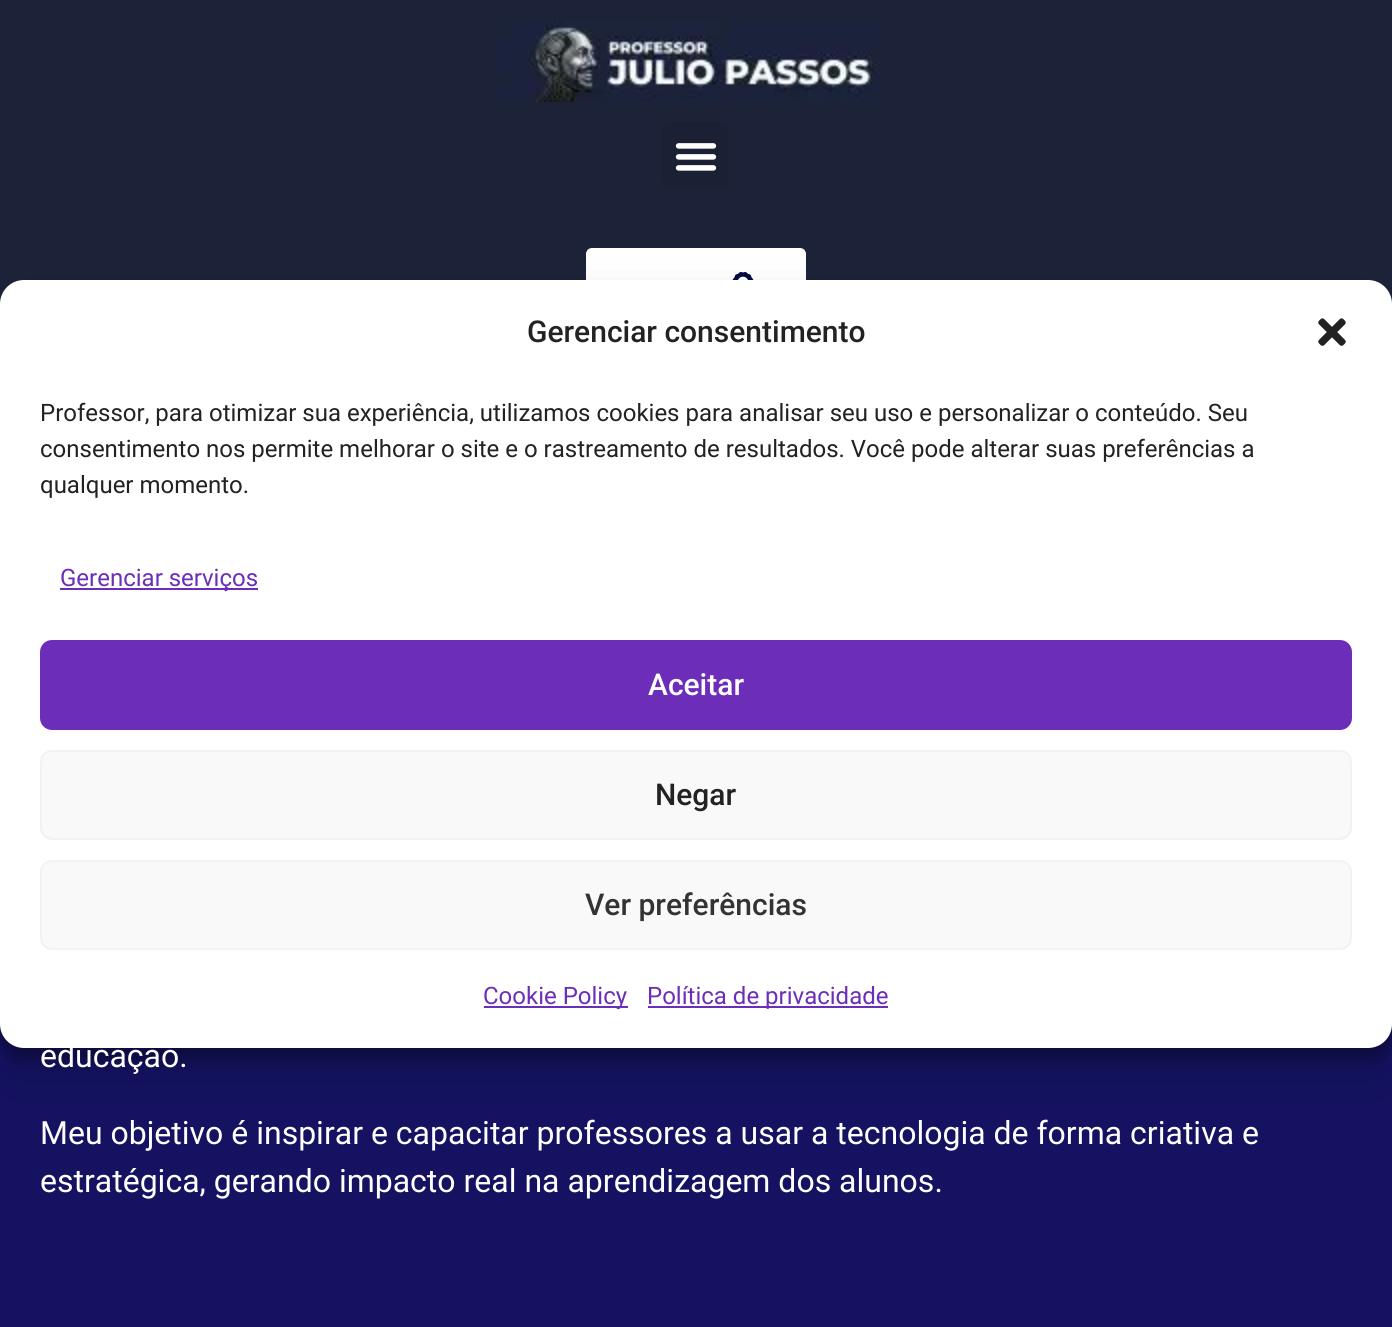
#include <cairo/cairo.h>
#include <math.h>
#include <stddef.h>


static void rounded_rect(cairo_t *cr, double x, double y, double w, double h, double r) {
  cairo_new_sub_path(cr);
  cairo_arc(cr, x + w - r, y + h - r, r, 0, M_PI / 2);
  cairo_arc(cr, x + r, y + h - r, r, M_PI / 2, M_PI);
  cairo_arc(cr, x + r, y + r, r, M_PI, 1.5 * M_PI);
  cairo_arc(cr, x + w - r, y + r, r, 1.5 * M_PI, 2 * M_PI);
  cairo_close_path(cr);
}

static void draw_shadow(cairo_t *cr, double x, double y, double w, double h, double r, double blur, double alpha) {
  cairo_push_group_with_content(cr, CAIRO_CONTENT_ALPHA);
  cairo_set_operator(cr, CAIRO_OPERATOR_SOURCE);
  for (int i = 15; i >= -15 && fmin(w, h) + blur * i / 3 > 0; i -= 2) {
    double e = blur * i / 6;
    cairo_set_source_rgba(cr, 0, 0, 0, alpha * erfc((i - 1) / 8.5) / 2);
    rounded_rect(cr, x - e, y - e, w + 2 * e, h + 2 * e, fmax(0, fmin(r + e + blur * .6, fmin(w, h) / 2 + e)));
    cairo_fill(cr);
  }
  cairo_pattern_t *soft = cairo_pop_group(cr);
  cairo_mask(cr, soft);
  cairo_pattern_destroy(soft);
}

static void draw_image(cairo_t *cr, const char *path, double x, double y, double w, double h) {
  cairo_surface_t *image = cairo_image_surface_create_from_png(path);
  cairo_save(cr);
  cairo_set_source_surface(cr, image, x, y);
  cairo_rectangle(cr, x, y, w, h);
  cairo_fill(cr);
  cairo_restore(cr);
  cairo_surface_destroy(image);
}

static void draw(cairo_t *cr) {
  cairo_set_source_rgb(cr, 20 / 255.0, 18 / 255.0, 97 / 255.0);
  cairo_paint(cr);
  cairo_set_source_rgb(cr, 28 / 255.0, 35 / 255.0, 56 / 255.0);
  cairo_rectangle(cr, 0, 0, 1392, 304);
  cairo_fill(cr);
  cairo_set_source_rgb(cr, 1, 1, 1);
  rounded_rect(cr, 586, 248, 220, 78, 6);
  cairo_fill(cr);
  draw_image(cr, "images/4.png", 732, 272, 22, 8);
  cairo_set_source_rgb(cr, 0, 0, 0);
  draw_shadow(cr, 0, 292, 1392, 768, 24, 6, 0.23);
  draw_shadow(cr, 0, 300, 1392, 768, 24, 20, 0.19);
  cairo_set_source_rgb(cr, 1, 1, 1);
  rounded_rect(cr, 0, 280, 1392, 768, 24);
  cairo_fill(cr);
  draw_image(cr, "images/1.png", 1318, 318, 28, 28);
  cairo_set_source_rgb(cr, 108 / 255.0, 46 / 255.0, 184 / 255.0);
  cairo_rectangle(cr, 60, 588, 198, 2);
  cairo_fill(cr);
  rounded_rect(cr, 41, 641, 1310, 88, 11);
  cairo_fill_preserve(cr);
  cairo_stroke(cr);
  cairo_set_source_rgb(cr, 249 / 255.0, 249 / 255.0, 249 / 255.0);
  rounded_rect(cr, 41, 751, 1310, 88, 11);
  cairo_fill_preserve(cr);
  cairo_set_source_rgb(cr, 242 / 255.0, 242 / 255.0, 242 / 255.0);
  cairo_stroke(cr);
  cairo_set_source_rgb(cr, 249 / 255.0, 249 / 255.0, 249 / 255.0);
  rounded_rect(cr, 41, 861, 1310, 88, 11);
  cairo_fill_preserve(cr);
  cairo_set_source_rgb(cr, 242 / 255.0, 242 / 255.0, 242 / 255.0);
  cairo_stroke(cr);
  cairo_set_source_rgb(cr, 108 / 255.0, 46 / 255.0, 184 / 255.0);
  cairo_rectangle(cr, 484, 1006, 144, 2);
  cairo_fill(cr);
  cairo_rectangle(cr, 648, 1006, 240, 2);
  cairo_fill(cr);
  draw_image(cr, "images/2.png", 496, 20, 384, 82);
  cairo_set_source_rgb(cr, 27 / 255.0, 33 / 255.0, 53 / 255.0);
  rounded_rect(cr, 662, 122, 66, 66, 6);
  cairo_fill(cr);
  draw_image(cr, "images/3.png", 675, 143, 42, 28);
  cairo_select_font_face(cr, "Roboto Medium", CAIRO_FONT_SLANT_NORMAL, CAIRO_FONT_WEIGHT_NORMAL);
  cairo_set_font_size(cr, 30);
  cairo_set_source_rgb(cr, 34 / 255.0, 34 / 255.0, 34 / 255.0);
  cairo_move_to(cr, 527, 342);
  cairo_show_text(cr, "Gerenciar consentimento");
  cairo_select_font_face(cr, "Roboto", CAIRO_FONT_SLANT_NORMAL, CAIRO_FONT_WEIGHT_NORMAL);
  cairo_set_font_size(cr, 24);
  cairo_move_to(cr, 40, 421);
  cairo_show_text(cr, "Professor, para otimizar sua experiência, utilizamos cookies para analisar seu uso e personalizar o conteúdo. Seu");
  cairo_move_to(cr, 40, 457);
  cairo_show_text(cr, "consentimento nos permite melhorar o site e o rastreamento de resultados. Você pode alterar suas preferências a");
  cairo_move_to(cr, 40, 493);
  cairo_show_text(cr, "qualquer momento.");
  cairo_set_source_rgb(cr, 108 / 255.0, 46 / 255.0, 184 / 255.0);
  cairo_move_to(cr, 60, 586);
  cairo_show_text(cr, "Gerenciar serviços");
  cairo_select_font_face(cr, "Roboto Medium", CAIRO_FONT_SLANT_NORMAL, CAIRO_FONT_WEIGHT_NORMAL);
  cairo_set_font_size(cr, 30);
  cairo_set_source_rgb(cr, 1, 1, 1);
  cairo_move_to(cr, 648, 695);
  cairo_show_text(cr, "Aceitar");
  cairo_set_source_rgb(cr, 34 / 255.0, 34 / 255.0, 34 / 255.0);
  cairo_move_to(cr, 655, 805);
  cairo_show_text(cr, "Negar");
  cairo_set_source_rgb(cr, 51 / 255.0, 51 / 255.0, 51 / 255.0);
  cairo_move_to(cr, 585, 915);
  cairo_show_text(cr, "Ver preferências");
  cairo_select_font_face(cr, "Roboto", CAIRO_FONT_SLANT_NORMAL, CAIRO_FONT_WEIGHT_NORMAL);
  cairo_set_font_size(cr, 24);
  cairo_set_source_rgb(cr, 108 / 255.0, 46 / 255.0, 184 / 255.0);
  cairo_move_to(cr, 483, 1004);
  cairo_show_text(cr, "Cookie Policy");
  cairo_move_to(cr, 647, 1004);
  cairo_show_text(cr, "Política de privacidade");
  cairo_set_font_size(cr, 32);
  cairo_set_source_rgb(cr, 1, 1, 1);
  cairo_move_to(cr, 40, 1067);
  cairo_show_text(cr, "educação.");
  cairo_move_to(cr, 40, 1144);
  cairo_show_text(cr, "Meu objetivo é inspirar e capacitar professores a usar a tecnologia de forma criativa e");
  cairo_move_to(cr, 40, 1192);
  cairo_show_text(cr, "estratégica, gerando impacto real na aprendizagem dos alunos.");
}

int main(void) {
  cairo_surface_t *surface = cairo_image_surface_create(CAIRO_FORMAT_RGB24, 1392, 1327);
  cairo_t *cr = cairo_create(surface);
  cairo_font_options_t *options = cairo_font_options_create();
  cairo_font_options_set_hint_metrics(options, CAIRO_HINT_METRICS_OFF);
  cairo_font_options_set_hint_style(options, CAIRO_HINT_STYLE_NONE);
  cairo_set_font_options(cr, options);
  cairo_set_miter_limit(cr, 4);
  draw(cr);
  cairo_surface_write_to_png(surface, "out.png");
  cairo_font_options_destroy(options);
  cairo_destroy(cr);
  cairo_surface_destroy(surface);
  return 0;
}
